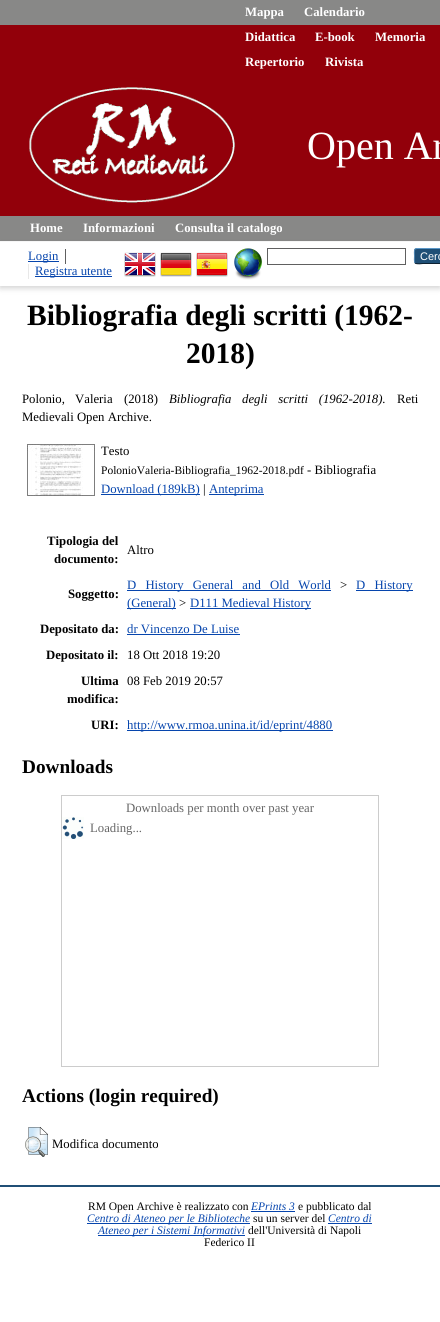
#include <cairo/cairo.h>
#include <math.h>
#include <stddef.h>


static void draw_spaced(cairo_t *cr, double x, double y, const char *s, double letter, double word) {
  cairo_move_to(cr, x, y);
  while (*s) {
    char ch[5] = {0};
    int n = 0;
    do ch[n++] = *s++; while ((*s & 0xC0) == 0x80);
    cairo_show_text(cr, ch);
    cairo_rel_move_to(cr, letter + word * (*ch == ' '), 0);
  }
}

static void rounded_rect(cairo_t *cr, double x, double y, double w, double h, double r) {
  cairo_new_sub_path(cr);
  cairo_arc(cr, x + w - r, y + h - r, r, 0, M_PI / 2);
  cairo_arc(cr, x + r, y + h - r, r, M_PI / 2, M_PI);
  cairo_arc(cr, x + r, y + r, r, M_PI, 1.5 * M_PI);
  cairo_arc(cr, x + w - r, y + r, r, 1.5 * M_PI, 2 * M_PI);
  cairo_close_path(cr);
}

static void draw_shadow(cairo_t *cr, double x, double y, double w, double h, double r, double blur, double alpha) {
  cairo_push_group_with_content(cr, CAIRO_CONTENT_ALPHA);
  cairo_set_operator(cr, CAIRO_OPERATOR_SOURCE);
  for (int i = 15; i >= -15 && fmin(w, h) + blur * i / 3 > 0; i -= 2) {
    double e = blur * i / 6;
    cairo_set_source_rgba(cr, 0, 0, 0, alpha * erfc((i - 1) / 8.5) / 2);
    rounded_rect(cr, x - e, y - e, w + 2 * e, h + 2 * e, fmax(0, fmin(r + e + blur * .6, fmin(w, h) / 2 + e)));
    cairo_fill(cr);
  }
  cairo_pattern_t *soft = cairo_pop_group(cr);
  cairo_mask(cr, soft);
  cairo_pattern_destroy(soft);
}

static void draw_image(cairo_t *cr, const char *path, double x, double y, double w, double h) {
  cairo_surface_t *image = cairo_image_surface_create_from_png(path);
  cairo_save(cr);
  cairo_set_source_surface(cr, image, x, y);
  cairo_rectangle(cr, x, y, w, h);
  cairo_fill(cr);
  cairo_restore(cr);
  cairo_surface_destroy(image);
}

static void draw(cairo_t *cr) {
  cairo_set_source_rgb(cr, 1, 1, 1);
  cairo_paint(cr);
  cairo_set_source_rgb(cr, 146 / 255.0, 0, 10 / 255.0);
  cairo_rectangle(cr, 0, 25, 440, 191);
  cairo_fill(cr);
  cairo_set_source_rgb(cr, 136 / 255.0, 136 / 255.0, 135 / 255.0);
  cairo_rectangle(cr, 0, 0, 440, 25);
  cairo_fill(cr);
  draw_image(cr, "images/1.png", 29, 87, 206, 116);
  cairo_rectangle(cr, 0, 216, 440, 25);
  cairo_fill(cr);
  cairo_set_source_rgb(cr, 100 / 255.0, 100 / 255.0, 100 / 255.0);
  draw_shadow(cr, 0, 244, 440, 44, 0, 3, 0.3);
  cairo_set_source_rgb(cr, 1, 1, 1);
  cairo_rectangle(cr, 0, 242, 440, 44);
  cairo_fill(cr);
  cairo_set_source_rgb(cr, 96 / 255.0, 96 / 255.0, 96 / 255.0);
  cairo_rectangle(cr, 65, 249, 1, 15);
  cairo_fill(cr);
  cairo_set_source_rgb(cr, 6 / 255.0, 69 / 255.0, 173 / 255.0);
  cairo_rectangle(cr, 28, 261, 31, 1);
  cairo_fill(cr);
  cairo_set_source_rgb(cr, 232 / 255.0, 232 / 255.0, 232 / 255.0);
  cairo_rectangle(cr, 28, 264, 1, 15);
  cairo_fill(cr);
  cairo_set_source_rgb(cr, 6 / 255.0, 69 / 255.0, 173 / 255.0);
  cairo_rectangle(cr, 35, 276, 77, 1);
  cairo_fill(cr);
  draw_image(cr, "images/2.png", 124, 252, 32, 25);
  draw_image(cr, "images/3.png", 160, 252, 32, 25);
  draw_image(cr, "images/4.png", 196, 252, 32, 25);
  draw_image(cr, "images/5.png", 234, 248, 28, 32);
  cairo_rectangle(cr, 267.5, 248.5, 138, 16);
  cairo_set_source_rgb(cr, 96 / 255.0, 96 / 255.0, 96 / 255.0);
  cairo_set_line_width(cr, 1);
  cairo_stroke(cr);
  cairo_set_source_rgb(cr, 31 / 255.0, 79 / 255.0, 118 / 255.0);
  rounded_rect(cr, 414, 248, 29, 16, 3);
  cairo_fill(cr);
  cairo_new_path(cr);
  cairo_move_to(cr, 415, 249);
  cairo_line_to(cr, 417, 248.5);
  cairo_line_to(cr, 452, 248.5);
  cairo_line_to(cr, 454, 249);
  cairo_set_source_rgb(cr, 91 / 255.0, 151 / 255.0, 199 / 255.0);
  cairo_stroke(cr);
  cairo_new_path(cr);
  cairo_move_to(cr, 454, 249);
  cairo_curve_to(cr, 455, 250.5, 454.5, 254.5, 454.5, 256);
  cairo_curve_to(cr, 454.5, 264.5, 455, 263.5, 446, 263.5);
  cairo_line_to(cr, 423, 263.5);
  cairo_curve_to(cr, 422, 263.5, 417, 264.5, 415, 263);
  cairo_set_source_rgb(cr, 13 / 255.0, 33 / 255.0, 49 / 255.0);
  cairo_stroke(cr);
  cairo_new_path(cr);
  cairo_move_to(cr, 415, 263);
  cairo_curve_to(cr, 414, 261.5, 414.5, 257.5, 414.5, 256);
  cairo_curve_to(cr, 414.5, 254.5, 414, 250.5, 415, 249);
  cairo_set_source_rgb(cr, 82 / 255.0, 135 / 255.0, 179 / 255.0);
  cairo_stroke(cr);
  draw_image(cr, "images/6.png", 27, 444, 68, 52);
  cairo_set_source_rgb(cr, 6 / 255.0, 69 / 255.0, 173 / 255.0);
  cairo_rectangle(cr, 101, 494, 99, 1);
  cairo_fill(cr);
  cairo_rectangle(cr, 209, 494, 55, 1);
  cairo_fill(cr);
  cairo_rectangle(cr, 127, 590, 204, 1);
  cairo_fill(cr);
  cairo_rectangle(cr, 356, 590, 57, 1);
  cairo_fill(cr);
  cairo_rectangle(cr, 127, 608, 49, 1);
  cairo_fill(cr);
  cairo_rectangle(cr, 190, 608, 121, 1);
  cairo_fill(cr);
  cairo_rectangle(cr, 127, 634, 113, 1);
  cairo_fill(cr);
  cairo_rectangle(cr, 127, 730, 206, 1);
  cairo_fill(cr);
  cairo_rectangle(cr, 61.5, 795.5, 317, 271);
  cairo_set_source_rgb(cr, 204 / 255.0, 204 / 255.0, 204 / 255.0);
  cairo_stroke(cr);
  draw_image(cr, "images/7.png", 62, 817, 22, 22);
  draw_image(cr, "images/8.png", 25, 1127, 23, 30);
  cairo_set_source_rgb(cr, 32 / 255.0, 79 / 255.0, 118 / 255.0);
  cairo_rectangle(cr, 0, 1185, 440, 2);
  cairo_fill(cr);
  cairo_set_source_rgb(cr, 6 / 255.0, 69 / 255.0, 173 / 255.0);
  cairo_rectangle(cr, 251, 1211, 44, 1);
  cairo_fill(cr);
  cairo_rectangle(cr, 87, 1223, 163, 1);
  cairo_fill(cr);
  cairo_rectangle(cr, 328, 1223, 44, 1);
  cairo_fill(cr);
  cairo_rectangle(cr, 98, 1235, 147, 1);
  cairo_fill(cr);
  cairo_select_font_face(cr, "Liberation Serif", CAIRO_FONT_SLANT_NORMAL, CAIRO_FONT_WEIGHT_BOLD);
  cairo_set_font_size(cr, 12.75);
  cairo_set_source_rgb(cr, 1, 1, 1);
  cairo_move_to(cr, 245, 16);
  cairo_show_text(cr, "Mappa");
  cairo_move_to(cr, 304, 16);
  cairo_show_text(cr, "Calendario");
  cairo_move_to(cr, 245, 41);
  cairo_show_text(cr, "Didattica");
  cairo_move_to(cr, 315, 41);
  cairo_show_text(cr, "E-book");
  cairo_move_to(cr, 375, 41);
  cairo_show_text(cr, "Memoria");
  cairo_move_to(cr, 245, 66);
  cairo_show_text(cr, "Repertorio");
  cairo_move_to(cr, 325, 66);
  cairo_show_text(cr, "Rivista");
  cairo_select_font_face(cr, "Liberation Serif", CAIRO_FONT_SLANT_NORMAL, CAIRO_FONT_WEIGHT_NORMAL);
  cairo_set_font_size(cr, 40);
  cairo_move_to(cr, 307, 159);
  cairo_show_text(cr, "Open Ar");
  cairo_select_font_face(cr, "Liberation Serif", CAIRO_FONT_SLANT_NORMAL, CAIRO_FONT_WEIGHT_BOLD);
  cairo_set_font_size(cr, 12.75);
  cairo_move_to(cr, 30, 232);
  cairo_show_text(cr, "Home");
  cairo_move_to(cr, 83, 232);
  cairo_show_text(cr, "Informazioni");
  cairo_move_to(cr, 175, 232);
  cairo_show_text(cr, "Consulta il catalogo");
  cairo_select_font_face(cr, "Liberation Serif", CAIRO_FONT_SLANT_NORMAL, CAIRO_FONT_WEIGHT_NORMAL);
  cairo_set_source_rgb(cr, 6 / 255.0, 69 / 255.0, 173 / 255.0);
  cairo_move_to(cr, 28, 260);
  cairo_show_text(cr, "Login");
  cairo_move_to(cr, 35, 275);
  cairo_show_text(cr, "Registra utente");
  cairo_select_font_face(cr, "Liberation Sans", CAIRO_FONT_SLANT_NORMAL, CAIRO_FONT_WEIGHT_NORMAL);
  cairo_set_font_size(cr, 11);
  cairo_set_source_rgb(cr, 1, 1, 1);
  cairo_move_to(cr, 420, 260);
  cairo_show_text(cr, "Cerc");
  cairo_select_font_face(cr, "Liberation Serif", CAIRO_FONT_SLANT_NORMAL, CAIRO_FONT_WEIGHT_BOLD);
  cairo_set_font_size(cr, 29.5);
  cairo_set_source_rgb(cr, 0, 0, 0);
  cairo_move_to(cr, 27, 325);
  cairo_show_text(cr, "Bibliografia degli scritti (1962-");
  cairo_move_to(cr, 186, 363);
  cairo_show_text(cr, "2018)");
  cairo_select_font_face(cr, "Liberation Serif", CAIRO_FONT_SLANT_NORMAL, CAIRO_FONT_WEIGHT_NORMAL);
  cairo_set_font_size(cr, 12.75);
  draw_spaced(cr, 22, 403, "Polonio, Valeria", 0, 7);
  cairo_move_to(cr, 124, 403);
  cairo_show_text(cr, "(2018)");
  cairo_select_font_face(cr, "Liberation Serif", CAIRO_FONT_SLANT_ITALIC, CAIRO_FONT_WEIGHT_NORMAL);
  draw_spaced(cr, 169, 403, "Bibliografia degli scritti (1962-2018).", 0, 7.5);
  cairo_select_font_face(cr, "Liberation Serif", CAIRO_FONT_SLANT_NORMAL, CAIRO_FONT_WEIGHT_NORMAL);
  cairo_move_to(cr, 397, 403);
  cairo_show_text(cr, "Reti");
  cairo_move_to(cr, 22, 421);
  cairo_show_text(cr, "Medievali Open Archive.");
  cairo_move_to(cr, 101, 455);
  cairo_show_text(cr, "Testo");
  cairo_set_font_size(cr, 11.5);
  cairo_move_to(cr, 101, 474);
  cairo_show_text(cr, "PolonioValeria-Bibliografia_1962-2018.pdf");
  cairo_set_font_size(cr, 12.75);
  cairo_move_to(cr, 307, 474);
  cairo_show_text(cr, "- Bibliografia");
  cairo_set_source_rgb(cr, 6 / 255.0, 69 / 255.0, 173 / 255.0);
  cairo_move_to(cr, 101, 493);
  cairo_show_text(cr, "Download (189kB)");
  cairo_set_source_rgb(cr, 0, 0, 0);
  cairo_move_to(cr, 203, 493);
  cairo_show_text(cr, "|");
  cairo_set_source_rgb(cr, 6 / 255.0, 69 / 255.0, 173 / 255.0);
  cairo_move_to(cr, 209, 493);
  cairo_show_text(cr, "Anteprima");
  cairo_select_font_face(cr, "Liberation Serif", CAIRO_FONT_SLANT_NORMAL, CAIRO_FONT_WEIGHT_BOLD);
  cairo_set_source_rgb(cr, 0, 0, 0);
  cairo_move_to(cr, 47, 545);
  cairo_show_text(cr, "Tipologia del");
  cairo_move_to(cr, 54, 563);
  cairo_show_text(cr, "documento:");
  cairo_select_font_face(cr, "Liberation Serif", CAIRO_FONT_SLANT_NORMAL, CAIRO_FONT_WEIGHT_NORMAL);
  cairo_move_to(cr, 127, 554);
  cairo_show_text(cr, "Altro");
  cairo_select_font_face(cr, "Liberation Serif", CAIRO_FONT_SLANT_NORMAL, CAIRO_FONT_WEIGHT_BOLD);
  cairo_move_to(cr, 68, 598);
  cairo_show_text(cr, "Soggetto:");
  cairo_select_font_face(cr, "Liberation Serif", CAIRO_FONT_SLANT_NORMAL, CAIRO_FONT_WEIGHT_NORMAL);
  cairo_set_source_rgb(cr, 6 / 255.0, 69 / 255.0, 173 / 255.0);
  draw_spaced(cr, 127, 589, "D History General and Old World", 0, 6);
  cairo_set_source_rgb(cr, 0, 0, 0);
  cairo_move_to(cr, 340, 589);
  cairo_show_text(cr, ">");
  cairo_set_source_rgb(cr, 6 / 255.0, 69 / 255.0, 173 / 255.0);
  draw_spaced(cr, 356, 589, "D History", 0, 6);
  cairo_move_to(cr, 127, 607);
  cairo_show_text(cr, "(General)");
  cairo_set_source_rgb(cr, 0, 0, 0);
  cairo_move_to(cr, 179, 607);
  cairo_show_text(cr, ">");
  cairo_set_source_rgb(cr, 6 / 255.0, 69 / 255.0, 173 / 255.0);
  cairo_move_to(cr, 190, 607);
  cairo_show_text(cr, "D111 Medieval History");
  cairo_select_font_face(cr, "Liberation Serif", CAIRO_FONT_SLANT_NORMAL, CAIRO_FONT_WEIGHT_BOLD);
  cairo_set_source_rgb(cr, 0, 0, 0);
  cairo_move_to(cr, 40, 633);
  cairo_show_text(cr, "Depositato da:");
  cairo_select_font_face(cr, "Liberation Serif", CAIRO_FONT_SLANT_NORMAL, CAIRO_FONT_WEIGHT_NORMAL);
  cairo_set_source_rgb(cr, 6 / 255.0, 69 / 255.0, 173 / 255.0);
  cairo_move_to(cr, 127, 633);
  cairo_show_text(cr, "dr Vincenzo De Luise");
  cairo_select_font_face(cr, "Liberation Serif", CAIRO_FONT_SLANT_NORMAL, CAIRO_FONT_WEIGHT_BOLD);
  cairo_set_source_rgb(cr, 0, 0, 0);
  cairo_move_to(cr, 46, 659);
  cairo_show_text(cr, "Depositato il:");
  cairo_select_font_face(cr, "Liberation Serif", CAIRO_FONT_SLANT_NORMAL, CAIRO_FONT_WEIGHT_NORMAL);
  cairo_move_to(cr, 127, 659);
  cairo_show_text(cr, "18 Ott 2018 19:20");
  cairo_select_font_face(cr, "Liberation Serif", CAIRO_FONT_SLANT_NORMAL, CAIRO_FONT_WEIGHT_BOLD);
  cairo_move_to(cr, 81, 685);
  cairo_show_text(cr, "Ultima");
  cairo_move_to(cr, 67, 703);
  cairo_show_text(cr, "modifica:");
  cairo_select_font_face(cr, "Liberation Serif", CAIRO_FONT_SLANT_NORMAL, CAIRO_FONT_WEIGHT_NORMAL);
  cairo_move_to(cr, 127, 685);
  cairo_show_text(cr, "08 Feb 2019 20:57");
  cairo_select_font_face(cr, "Liberation Serif", CAIRO_FONT_SLANT_NORMAL, CAIRO_FONT_WEIGHT_BOLD);
  cairo_move_to(cr, 91, 729);
  cairo_show_text(cr, "URI:");
  cairo_select_font_face(cr, "Liberation Serif", CAIRO_FONT_SLANT_NORMAL, CAIRO_FONT_WEIGHT_NORMAL);
  cairo_set_source_rgb(cr, 6 / 255.0, 69 / 255.0, 173 / 255.0);
  cairo_move_to(cr, 127, 729);
  cairo_show_text(cr, "http://www.rmoa.unina.it/id/eprint/4880");
  cairo_select_font_face(cr, "Liberation Serif", CAIRO_FONT_SLANT_NORMAL, CAIRO_FONT_WEIGHT_BOLD);
  cairo_set_font_size(cr, 19.25);
  cairo_set_source_rgb(cr, 0, 0, 0);
  cairo_move_to(cr, 22, 773);
  cairo_show_text(cr, "Downloads");
  cairo_select_font_face(cr, "Liberation Serif", CAIRO_FONT_SLANT_NORMAL, CAIRO_FONT_WEIGHT_NORMAL);
  cairo_set_font_size(cr, 12.75);
  cairo_set_source_rgb(cr, 102 / 255.0, 102 / 255.0, 102 / 255.0);
  cairo_move_to(cr, 126, 812);
  cairo_show_text(cr, "Downloads per month over past year");
  cairo_move_to(cr, 90, 832);
  cairo_show_text(cr, "Loading...");
  cairo_select_font_face(cr, "Liberation Serif", CAIRO_FONT_SLANT_NORMAL, CAIRO_FONT_WEIGHT_BOLD);
  cairo_set_font_size(cr, 19.25);
  cairo_set_source_rgb(cr, 0, 0, 0);
  cairo_move_to(cr, 22, 1102);
  cairo_show_text(cr, "Actions (login required)");
  cairo_select_font_face(cr, "Liberation Serif", CAIRO_FONT_SLANT_NORMAL, CAIRO_FONT_WEIGHT_NORMAL);
  cairo_set_font_size(cr, 12.75);
  cairo_move_to(cr, 52, 1148);
  cairo_show_text(cr, "Modifica documento");
  cairo_set_font_size(cr, 11.5);
  cairo_move_to(cr, 88, 1210);
  cairo_show_text(cr, "RM Open Archive è realizzato con");
  cairo_select_font_face(cr, "Liberation Serif", CAIRO_FONT_SLANT_ITALIC, CAIRO_FONT_WEIGHT_NORMAL);
  cairo_set_source_rgb(cr, 6 / 255.0, 69 / 255.0, 173 / 255.0);
  cairo_move_to(cr, 251, 1210);
  cairo_show_text(cr, "EPrints 3");
  cairo_select_font_face(cr, "Liberation Serif", CAIRO_FONT_SLANT_NORMAL, CAIRO_FONT_WEIGHT_NORMAL);
  cairo_set_source_rgb(cr, 0, 0, 0);
  cairo_move_to(cr, 298, 1210);
  cairo_show_text(cr, "e pubblicato dal");
  cairo_select_font_face(cr, "Liberation Serif", CAIRO_FONT_SLANT_ITALIC, CAIRO_FONT_WEIGHT_NORMAL);
  cairo_set_source_rgb(cr, 6 / 255.0, 69 / 255.0, 173 / 255.0);
  cairo_move_to(cr, 87, 1222);
  cairo_show_text(cr, "Centro di Ateneo per le Biblioteche");
  cairo_select_font_face(cr, "Liberation Serif", CAIRO_FONT_SLANT_NORMAL, CAIRO_FONT_WEIGHT_NORMAL);
  cairo_set_source_rgb(cr, 0, 0, 0);
  cairo_move_to(cr, 253, 1222);
  cairo_show_text(cr, "su un server del");
  cairo_select_font_face(cr, "Liberation Serif", CAIRO_FONT_SLANT_ITALIC, CAIRO_FONT_WEIGHT_NORMAL);
  cairo_set_source_rgb(cr, 6 / 255.0, 69 / 255.0, 173 / 255.0);
  cairo_move_to(cr, 328, 1222);
  cairo_show_text(cr, "Centro di");
  cairo_move_to(cr, 98, 1234);
  cairo_show_text(cr, "Ateneo per i Sistemi Informativi");
  cairo_select_font_face(cr, "Liberation Serif", CAIRO_FONT_SLANT_NORMAL, CAIRO_FONT_WEIGHT_NORMAL);
  cairo_set_source_rgb(cr, 0, 0, 0);
  cairo_move_to(cr, 248, 1234);
  cairo_show_text(cr, "dell'Università di Napoli");
  cairo_move_to(cr, 204, 1246);
  cairo_show_text(cr, "Federico II");
}

int main(void) {
  cairo_surface_t *surface = cairo_image_surface_create(CAIRO_FORMAT_RGB24, 440, 1322);
  cairo_t *cr = cairo_create(surface);
  cairo_font_options_t *options = cairo_font_options_create();
  cairo_font_options_set_hint_metrics(options, CAIRO_HINT_METRICS_OFF);
  cairo_font_options_set_hint_style(options, CAIRO_HINT_STYLE_NONE);
  cairo_set_font_options(cr, options);
  cairo_set_miter_limit(cr, 4);
  draw(cr);
  cairo_surface_write_to_png(surface, "out.png");
  cairo_font_options_destroy(options);
  cairo_destroy(cr);
  cairo_surface_destroy(surface);
  return 0;
}
